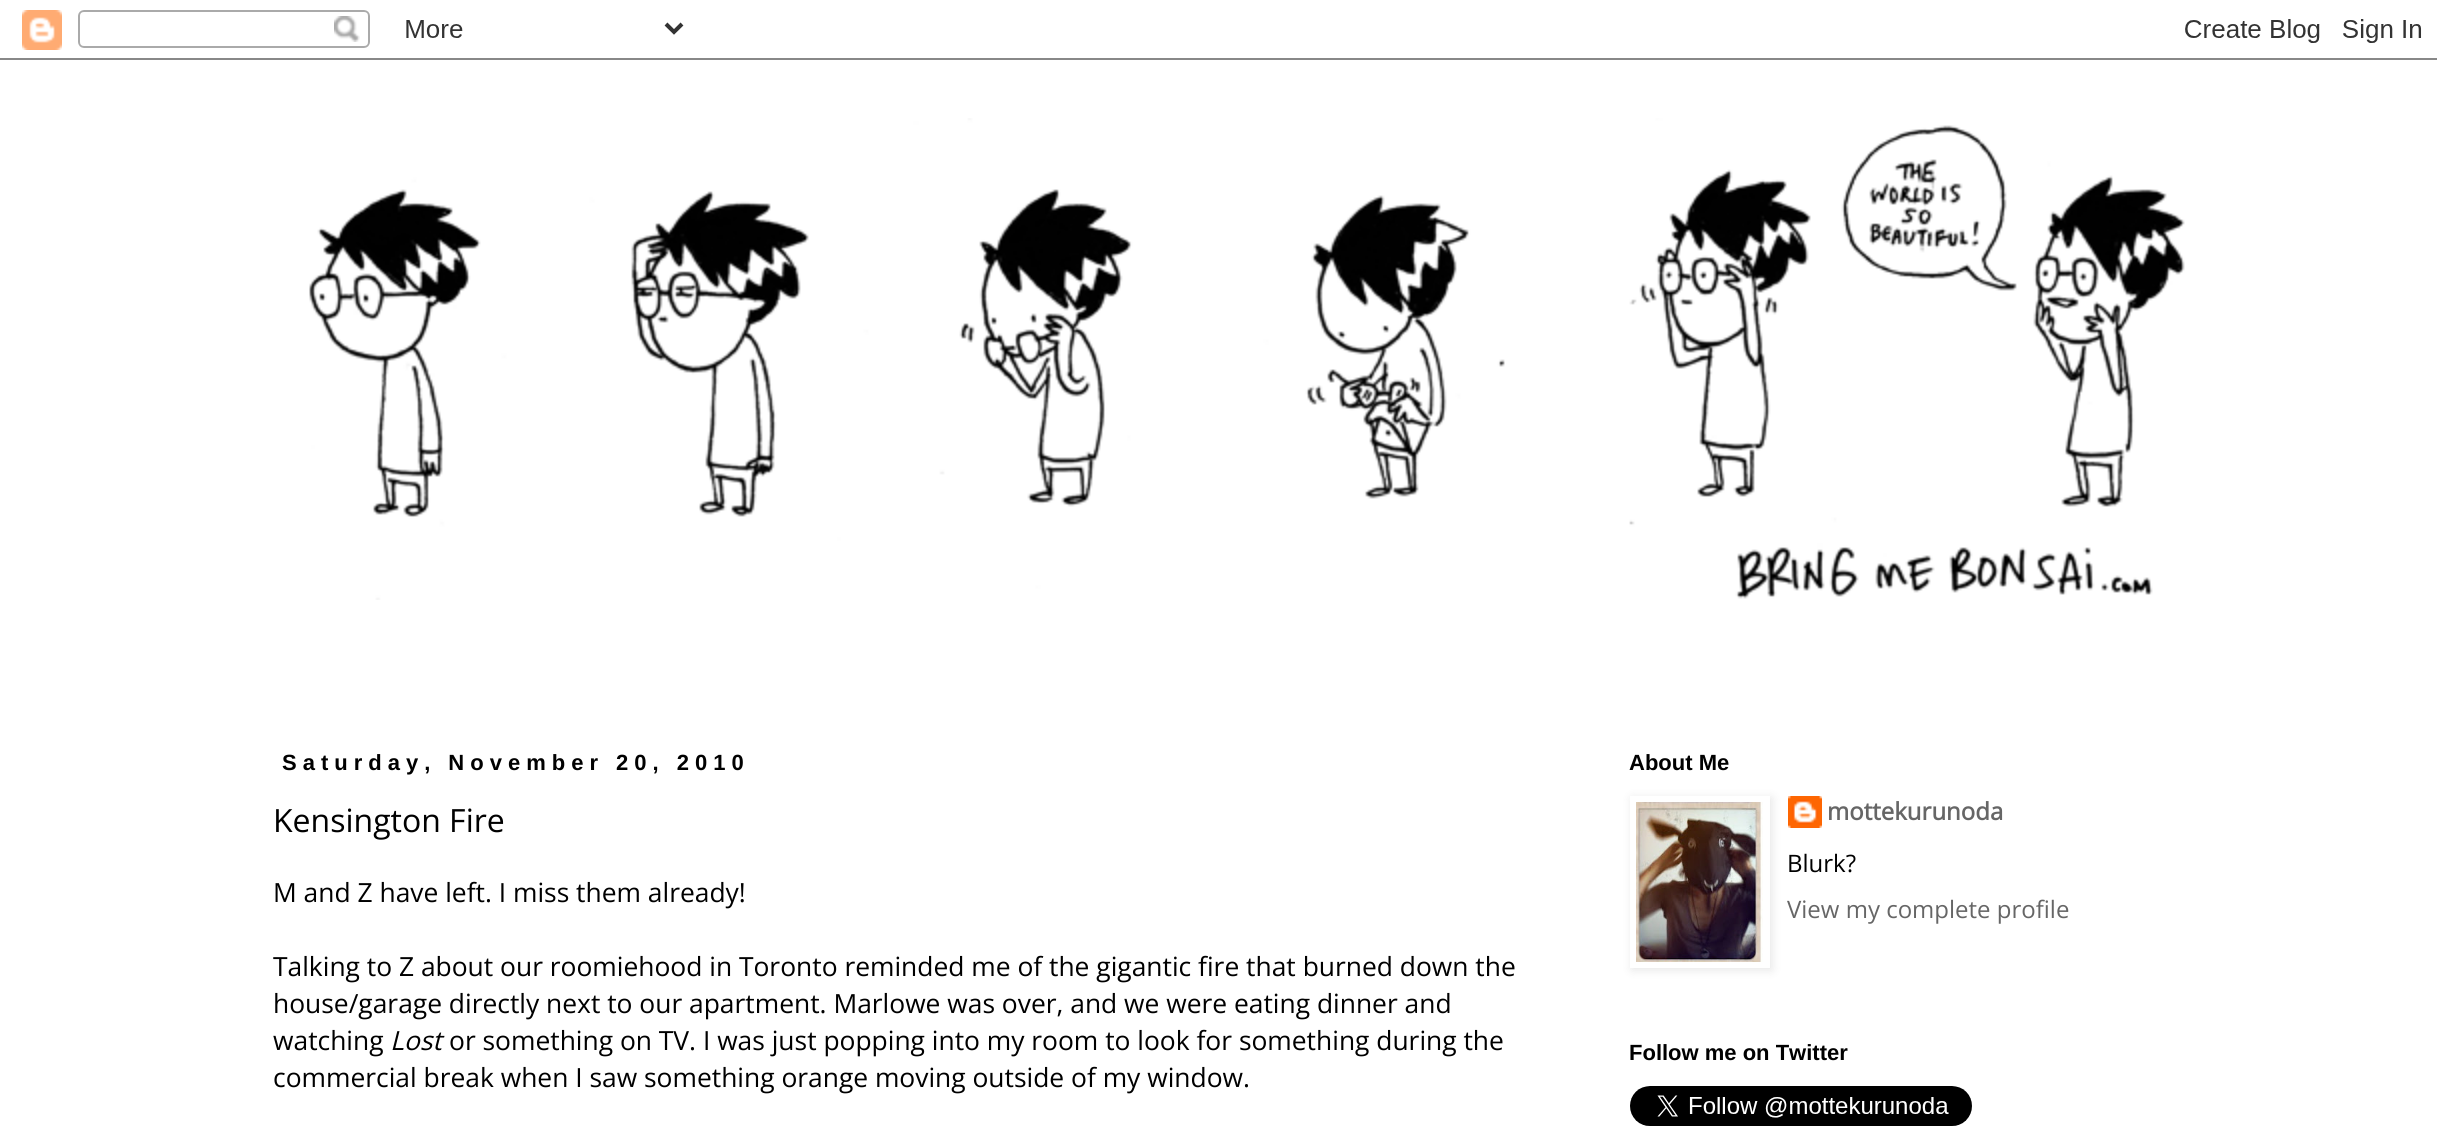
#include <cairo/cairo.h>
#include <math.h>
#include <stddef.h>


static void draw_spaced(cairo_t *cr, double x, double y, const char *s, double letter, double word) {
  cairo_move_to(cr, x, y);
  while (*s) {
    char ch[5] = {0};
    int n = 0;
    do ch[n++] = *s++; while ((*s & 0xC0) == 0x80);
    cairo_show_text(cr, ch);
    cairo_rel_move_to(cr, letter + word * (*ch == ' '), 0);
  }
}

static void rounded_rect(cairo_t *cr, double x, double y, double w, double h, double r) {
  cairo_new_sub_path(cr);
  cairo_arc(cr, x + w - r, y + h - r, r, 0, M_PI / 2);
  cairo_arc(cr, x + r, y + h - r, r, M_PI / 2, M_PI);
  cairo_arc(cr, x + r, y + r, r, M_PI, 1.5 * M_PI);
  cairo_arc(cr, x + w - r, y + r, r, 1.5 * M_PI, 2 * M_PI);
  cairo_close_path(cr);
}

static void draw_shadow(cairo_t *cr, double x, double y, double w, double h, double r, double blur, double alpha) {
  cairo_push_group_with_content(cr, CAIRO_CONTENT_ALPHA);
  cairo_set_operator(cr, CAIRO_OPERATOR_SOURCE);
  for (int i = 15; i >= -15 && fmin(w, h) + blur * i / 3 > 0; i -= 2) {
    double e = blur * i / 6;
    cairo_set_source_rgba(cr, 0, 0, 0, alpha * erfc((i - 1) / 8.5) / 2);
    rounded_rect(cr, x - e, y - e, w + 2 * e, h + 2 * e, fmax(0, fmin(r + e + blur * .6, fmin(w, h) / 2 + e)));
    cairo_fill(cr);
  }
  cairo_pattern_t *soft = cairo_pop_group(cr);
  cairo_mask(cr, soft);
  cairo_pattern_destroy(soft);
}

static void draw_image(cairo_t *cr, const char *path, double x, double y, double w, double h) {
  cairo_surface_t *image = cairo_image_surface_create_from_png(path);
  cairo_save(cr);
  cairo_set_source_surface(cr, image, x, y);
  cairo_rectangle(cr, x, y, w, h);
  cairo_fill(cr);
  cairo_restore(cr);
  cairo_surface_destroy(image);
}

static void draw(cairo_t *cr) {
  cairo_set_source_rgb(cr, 1, 1, 1);
  cairo_paint(cr);
  draw_image(cr, "images/1.png", 0, 10, 2437, 50);
  draw_image(cr, "images/2.png", 309, 118, 1876, 482);
  cairo_save(cr);
  cairo_set_fill_rule(cr, CAIRO_FILL_RULE_EVEN_ODD);
  cairo_new_path(cr);
  cairo_move_to(cr, 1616, 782);
  cairo_line_to(cr, 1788, 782);
  cairo_line_to(cr, 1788, 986);
  cairo_line_to(cr, 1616, 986);
  cairo_close_path(cr);
  cairo_move_to(cr, 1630, 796);
  cairo_line_to(cr, 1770, 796);
  cairo_line_to(cr, 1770, 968);
  cairo_line_to(cr, 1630, 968);
  cairo_close_path(cr);
  cairo_clip(cr);
  cairo_set_source_rgb(cr, 0, 0, 0);
  draw_shadow(cr, 1632, 798, 140, 172, 0, 5, 0.1);
  cairo_restore(cr);
  draw_image(cr, "images/3.png", 1636, 802, 127, 160);
  draw_image(cr, "images/4.png", 1788, 796, 34, 32);
  draw_image(cr, "images/5.png", 1630, 1086, 342, 40);
  cairo_select_font_face(cr, "Liberation Sans", CAIRO_FONT_SLANT_NORMAL, CAIRO_FONT_WEIGHT_BOLD);
  cairo_set_font_size(cr, 22);
  cairo_set_source_rgb(cr, 0, 0, 0);
  draw_spaced(cr, 282, 770, "Saturday, November 20, 2010", 6, 0);
  cairo_select_font_face(cr, "Open Sans", CAIRO_FONT_SLANT_NORMAL, CAIRO_FONT_WEIGHT_NORMAL);
  cairo_set_font_size(cr, 32);
  cairo_move_to(cr, 273, 832);
  cairo_show_text(cr, "Kensington Fire");
  cairo_set_font_size(cr, 26.4);
  cairo_move_to(cr, 273, 902);
  cairo_show_text(cr, "M and Z have left. I miss them already!");
  cairo_move_to(cr, 273, 976);
  cairo_show_text(cr, "Talking to Z about our roomiehood in Toronto reminded me of the gigantic fire that burned down the");
  cairo_move_to(cr, 273, 1013);
  cairo_show_text(cr, "house/garage directly next to our apartment. Marlowe was over, and we were eating dinner and");
  cairo_move_to(cr, 273, 1050);
  cairo_show_text(cr, "watching");
  cairo_select_font_face(cr, "Open Sans", CAIRO_FONT_SLANT_ITALIC, CAIRO_FONT_WEIGHT_NORMAL);
  cairo_move_to(cr, 390, 1050);
  cairo_show_text(cr, "Lost");
  cairo_select_font_face(cr, "Open Sans", CAIRO_FONT_SLANT_NORMAL, CAIRO_FONT_WEIGHT_NORMAL);
  cairo_move_to(cr, 449, 1050);
  cairo_show_text(cr, "or something on TV. I was just popping into my room to look for something during the");
  cairo_move_to(cr, 273, 1087);
  cairo_show_text(cr, "commercial break when I saw something orange moving outside of my window.");
  cairo_select_font_face(cr, "Liberation Sans", CAIRO_FONT_SLANT_NORMAL, CAIRO_FONT_WEIGHT_BOLD);
  cairo_set_font_size(cr, 22);
  cairo_move_to(cr, 1629, 770);
  cairo_show_text(cr, "About Me");
  cairo_select_font_face(cr, "Open Sans", CAIRO_FONT_SLANT_NORMAL, CAIRO_FONT_WEIGHT_BOLD);
  cairo_set_font_size(cr, 24);
  cairo_set_source_rgb(cr, 102 / 255.0, 102 / 255.0, 102 / 255.0);
  cairo_move_to(cr, 1827, 820);
  cairo_show_text(cr, "mottekurunoda");
  cairo_select_font_face(cr, "Open Sans", CAIRO_FONT_SLANT_NORMAL, CAIRO_FONT_WEIGHT_NORMAL);
  cairo_set_source_rgb(cr, 0, 0, 0);
  cairo_move_to(cr, 1787, 872);
  cairo_show_text(cr, "Blurk?");
  cairo_set_source_rgb(cr, 102 / 255.0, 102 / 255.0, 102 / 255.0);
  cairo_move_to(cr, 1787, 918);
  cairo_show_text(cr, "View my complete profile");
  cairo_select_font_face(cr, "Liberation Sans", CAIRO_FONT_SLANT_NORMAL, CAIRO_FONT_WEIGHT_BOLD);
  cairo_set_font_size(cr, 22);
  cairo_set_source_rgb(cr, 0, 0, 0);
  cairo_move_to(cr, 1629, 1060);
  cairo_show_text(cr, "Follow me on Twitter");
}

int main(void) {
  cairo_surface_t *surface = cairo_image_surface_create(CAIRO_FORMAT_RGB24, 2437, 1138);
  cairo_t *cr = cairo_create(surface);
  cairo_font_options_t *options = cairo_font_options_create();
  cairo_font_options_set_hint_metrics(options, CAIRO_HINT_METRICS_OFF);
  cairo_font_options_set_hint_style(options, CAIRO_HINT_STYLE_NONE);
  cairo_set_font_options(cr, options);
  cairo_set_miter_limit(cr, 4);
  draw(cr);
  cairo_surface_write_to_png(surface, "out.png");
  cairo_font_options_destroy(options);
  cairo_destroy(cr);
  cairo_surface_destroy(surface);
  return 0;
}
